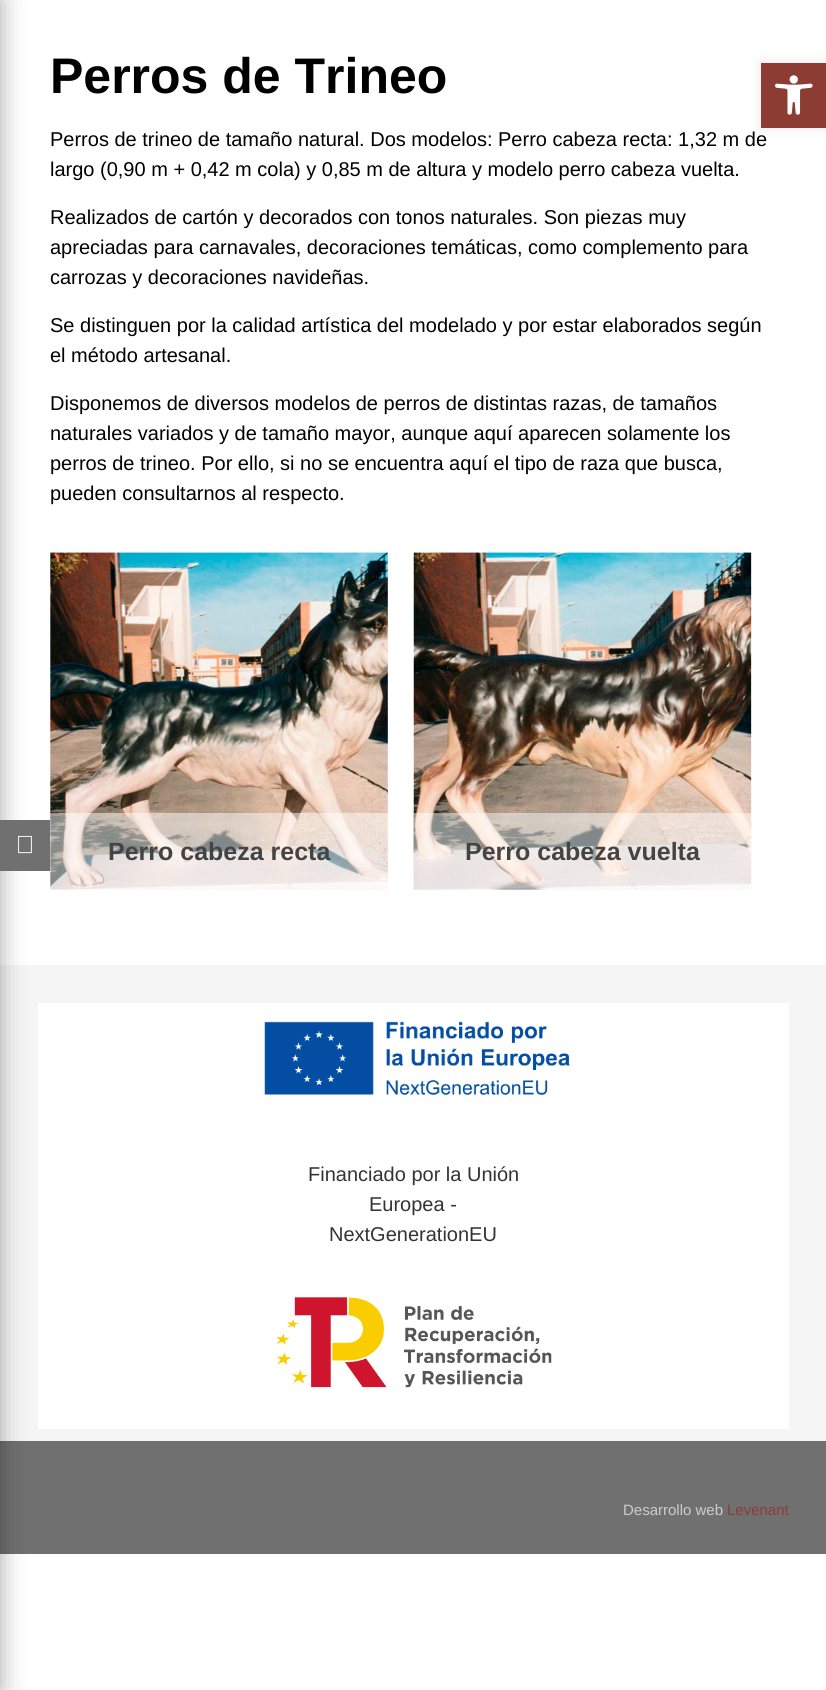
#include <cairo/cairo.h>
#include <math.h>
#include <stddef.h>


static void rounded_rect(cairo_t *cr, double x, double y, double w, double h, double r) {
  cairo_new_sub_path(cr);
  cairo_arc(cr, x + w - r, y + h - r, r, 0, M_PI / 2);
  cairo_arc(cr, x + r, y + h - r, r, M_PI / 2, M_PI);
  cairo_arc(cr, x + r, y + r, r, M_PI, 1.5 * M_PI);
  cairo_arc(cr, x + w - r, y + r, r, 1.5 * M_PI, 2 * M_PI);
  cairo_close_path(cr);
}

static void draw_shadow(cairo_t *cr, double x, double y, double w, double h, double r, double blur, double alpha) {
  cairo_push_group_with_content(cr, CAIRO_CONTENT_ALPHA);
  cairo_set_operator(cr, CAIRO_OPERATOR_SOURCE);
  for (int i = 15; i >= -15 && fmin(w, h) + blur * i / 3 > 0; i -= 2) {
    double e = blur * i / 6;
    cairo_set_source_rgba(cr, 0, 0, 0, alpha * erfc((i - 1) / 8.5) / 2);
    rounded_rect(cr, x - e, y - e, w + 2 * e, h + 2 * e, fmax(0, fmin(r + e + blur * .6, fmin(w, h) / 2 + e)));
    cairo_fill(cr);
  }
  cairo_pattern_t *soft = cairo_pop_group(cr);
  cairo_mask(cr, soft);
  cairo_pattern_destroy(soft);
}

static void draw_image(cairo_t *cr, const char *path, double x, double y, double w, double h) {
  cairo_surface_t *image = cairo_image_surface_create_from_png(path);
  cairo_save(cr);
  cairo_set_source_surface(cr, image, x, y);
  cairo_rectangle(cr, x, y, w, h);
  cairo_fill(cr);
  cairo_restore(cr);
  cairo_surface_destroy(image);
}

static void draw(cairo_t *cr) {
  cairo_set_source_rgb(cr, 1, 1, 1);
  cairo_paint(cr);
  cairo_set_source_rgb(cr, 245 / 255.0, 245 / 255.0, 245 / 255.0);
  cairo_rectangle(cr, 0, 965, 826, 476);
  cairo_fill(cr);
  cairo_set_source_rgb(cr, 1, 1, 1);
  cairo_rectangle(cr, 38, 1003, 751, 426);
  cairo_fill(cr);
  cairo_set_source_rgb(cr, 112 / 255.0, 112 / 255.0, 112 / 255.0);
  cairo_rectangle(cr, 0, 1441, 826, 113);
  cairo_fill(cr);
  cairo_set_source_rgb(cr, 0, 0, 0);
  draw_shadow(cr, -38, 0, 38, 1690, 0, 12.5, 0.35);
  cairo_set_source_rgb(cr, 112 / 255.0, 112 / 255.0, 112 / 255.0);
  cairo_rectangle(cr, 0, 820, 50, 51);
  cairo_fill(cr);
  draw_image(cr, "images/1.png", 18, 835, 14, 19);
  draw_image(cr, "images/2.png", 50, 552, 338, 338);
  cairo_set_source_rgba(cr, 1, 1, 1, 0.5);
  cairo_rectangle(cr, 50, 813, 338, 77);
  cairo_fill(cr);
  draw_image(cr, "images/3.png", 413, 552, 339, 338);
  cairo_rectangle(cr, 414, 813, 337, 77);
  cairo_fill(cr);
  cairo_set_source_rgb(cr, 0, 0, 0);
  draw_shadow(cr, 761, 63, 65, 65, 0, 6, 0.1);
  cairo_set_source_rgb(cr, 141 / 255.0, 60 / 255.0, 51 / 255.0);
  cairo_rectangle(cr, 761, 63, 65, 65);
  cairo_fill(cr);
  draw_image(cr, "images/4.png", 775, 75, 38, 40);
  draw_image(cr, "images/5.png", 264, 1021, 306, 74);
  draw_image(cr, "images/6.png", 276, 1297, 276, 91);
  cairo_select_font_face(cr, "Liberation Sans", CAIRO_FONT_SLANT_NORMAL, CAIRO_FONT_WEIGHT_BOLD);
  cairo_set_font_size(cr, 50);
  cairo_set_source_rgb(cr, 0, 0, 0);
  cairo_move_to(cr, 50, 93);
  cairo_show_text(cr, "Perros de Trineo");
  cairo_select_font_face(cr, "Liberation Sans", CAIRO_FONT_SLANT_NORMAL, CAIRO_FONT_WEIGHT_NORMAL);
  cairo_set_font_size(cr, 20);
  cairo_move_to(cr, 50, 146);
  cairo_show_text(cr, "Perros de trineo de tamaño natural. Dos modelos: Perro cabeza recta: 1,32 m de");
  cairo_move_to(cr, 50, 176);
  cairo_show_text(cr, "largo (0,90 m + 0,42 m cola) y 0,85 m de altura y modelo perro cabeza vuelta.");
  cairo_move_to(cr, 50, 224);
  cairo_show_text(cr, "Realizados de cartón y decorados con tonos naturales. Son piezas muy");
  cairo_move_to(cr, 50, 254);
  cairo_show_text(cr, "apreciadas para carnavales, decoraciones temáticas, como complemento para");
  cairo_move_to(cr, 50, 284);
  cairo_show_text(cr, "carrozas y decoraciones navideñas.");
  cairo_move_to(cr, 50, 332);
  cairo_show_text(cr, "Se distinguen por la calidad artística del modelado y por estar elaborados según");
  cairo_move_to(cr, 50, 362);
  cairo_show_text(cr, "el método artesanal.");
  cairo_move_to(cr, 50, 410);
  cairo_show_text(cr, "Disponemos de diversos modelos de perros de distintas razas, de tamaños");
  cairo_move_to(cr, 50, 440);
  cairo_show_text(cr, "naturales variados y de tamaño mayor, aunque aquí aparecen solamente los");
  cairo_move_to(cr, 50, 470);
  cairo_show_text(cr, "perros de trineo. Por ello, si no se encuentra aquí el tipo de raza que busca,");
  cairo_move_to(cr, 50, 500);
  cairo_show_text(cr, "pueden consultarnos al respecto.");
  cairo_select_font_face(cr, "Liberation Sans", CAIRO_FONT_SLANT_NORMAL, CAIRO_FONT_WEIGHT_BOLD);
  cairo_set_font_size(cr, 25);
  cairo_set_source_rgb(cr, 68 / 255.0, 68 / 255.0, 68 / 255.0);
  cairo_move_to(cr, 108, 860);
  cairo_show_text(cr, "Perro cabeza recta");
  cairo_move_to(cr, 465, 860);
  cairo_show_text(cr, "Perro cabeza vuelta");
  cairo_select_font_face(cr, "Liberation Sans", CAIRO_FONT_SLANT_NORMAL, CAIRO_FONT_WEIGHT_NORMAL);
  cairo_set_font_size(cr, 20);
  cairo_set_source_rgb(cr, 51 / 255.0, 51 / 255.0, 51 / 255.0);
  cairo_move_to(cr, 308, 1181);
  cairo_show_text(cr, "Financiado por la Unión");
  cairo_move_to(cr, 369, 1211);
  cairo_show_text(cr, "Europea -");
  cairo_move_to(cr, 329, 1241);
  cairo_show_text(cr, "NextGenerationEU");
  cairo_set_font_size(cr, 15);
  cairo_set_source_rgb(cr, 204 / 255.0, 204 / 255.0, 204 / 255.0);
  cairo_move_to(cr, 623, 1515);
  cairo_show_text(cr, "Desarrollo web");
  cairo_set_source_rgb(cr, 141 / 255.0, 60 / 255.0, 51 / 255.0);
  cairo_move_to(cr, 727, 1515);
  cairo_show_text(cr, "Levenant");
}

int main(void) {
  cairo_surface_t *surface = cairo_image_surface_create(CAIRO_FORMAT_RGB24, 826, 1690);
  cairo_t *cr = cairo_create(surface);
  cairo_font_options_t *options = cairo_font_options_create();
  cairo_font_options_set_hint_metrics(options, CAIRO_HINT_METRICS_OFF);
  cairo_font_options_set_hint_style(options, CAIRO_HINT_STYLE_NONE);
  cairo_set_font_options(cr, options);
  cairo_set_miter_limit(cr, 4);
  draw(cr);
  cairo_surface_write_to_png(surface, "out.png");
  cairo_font_options_destroy(options);
  cairo_destroy(cr);
  cairo_surface_destroy(surface);
  return 0;
}
